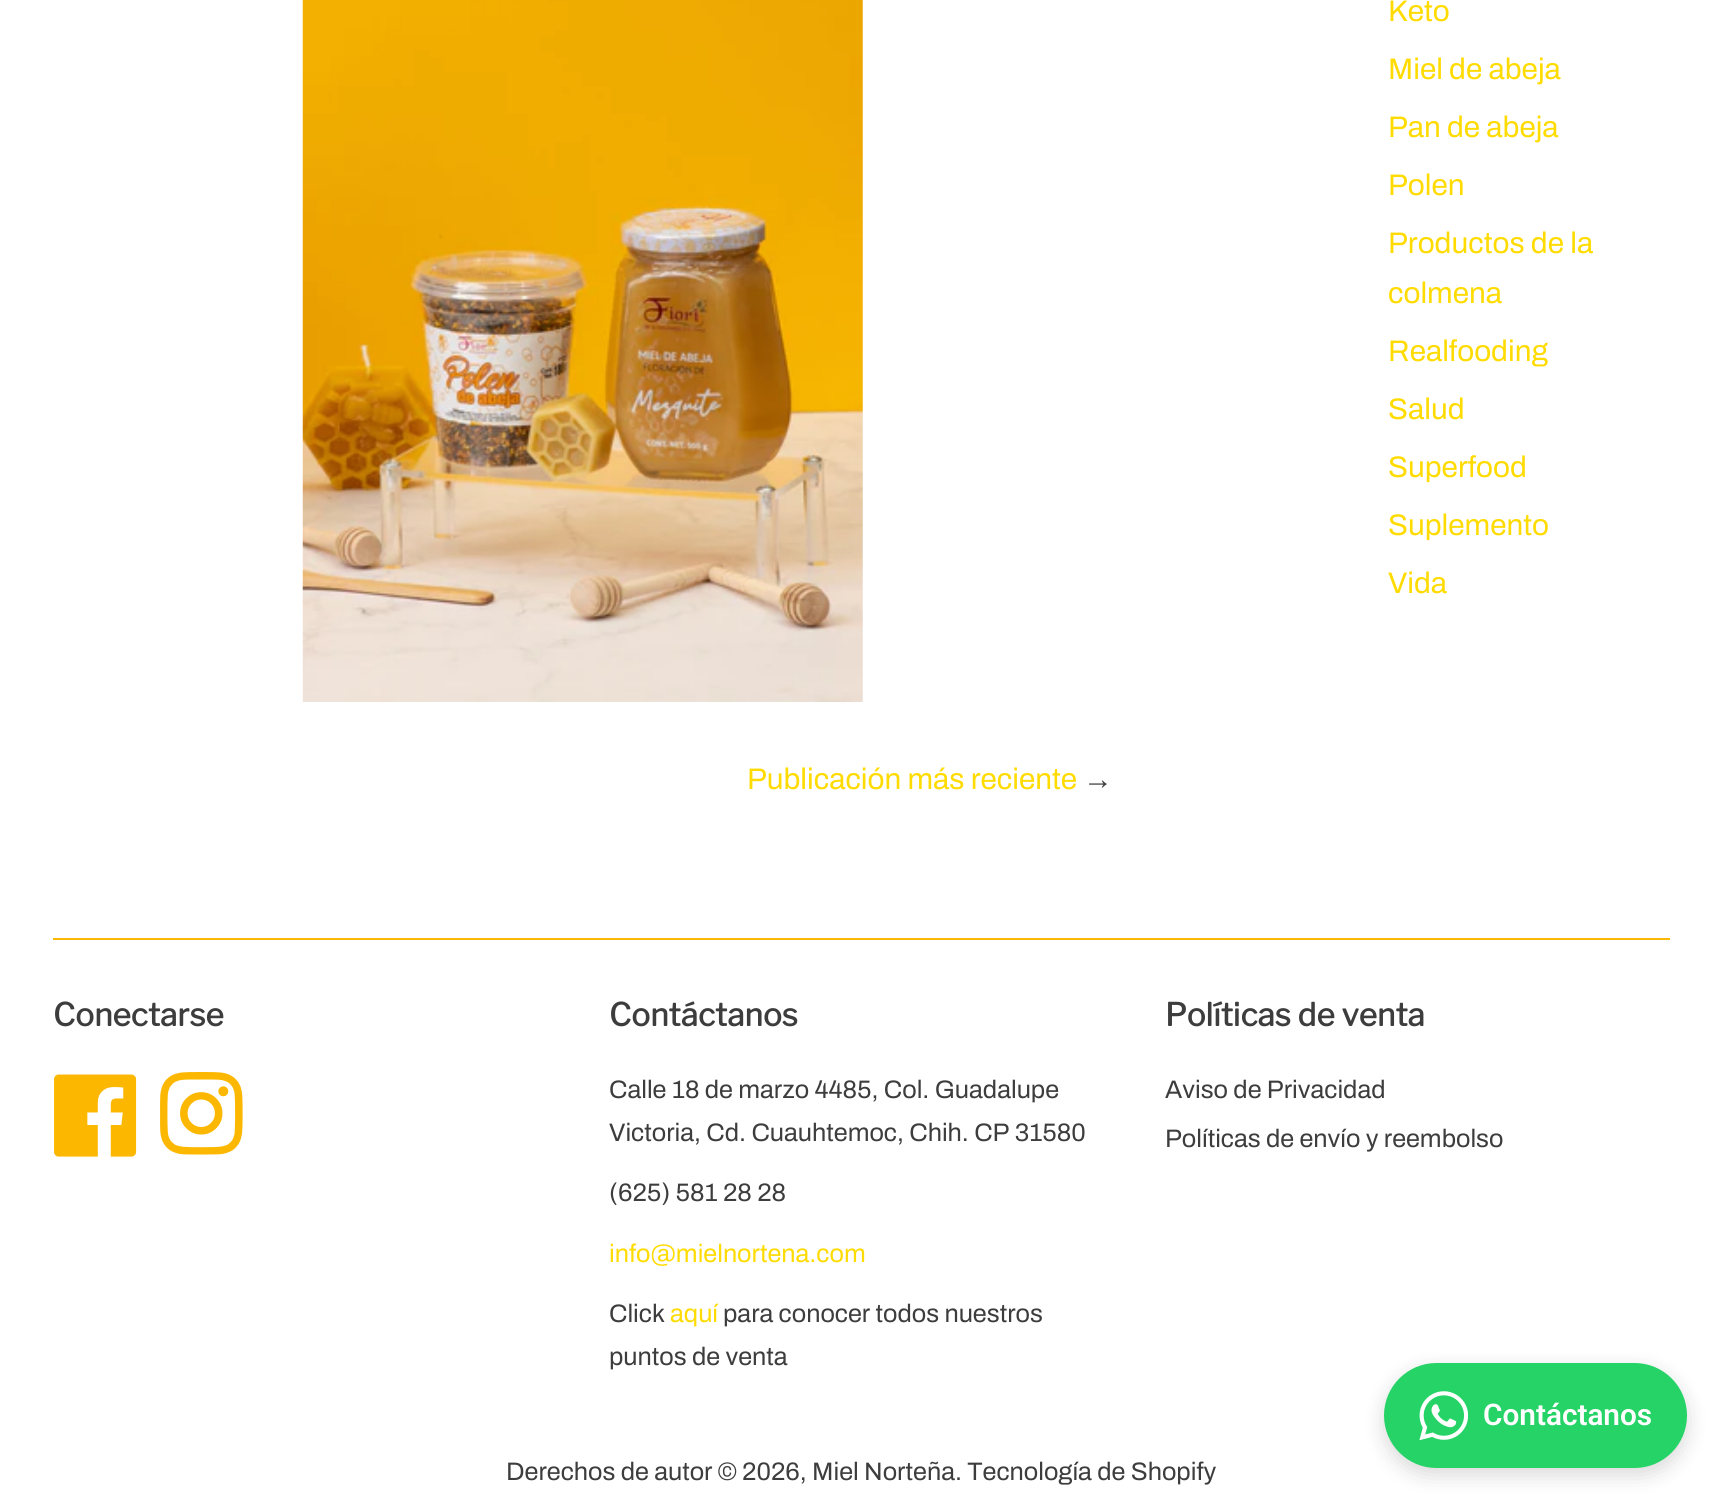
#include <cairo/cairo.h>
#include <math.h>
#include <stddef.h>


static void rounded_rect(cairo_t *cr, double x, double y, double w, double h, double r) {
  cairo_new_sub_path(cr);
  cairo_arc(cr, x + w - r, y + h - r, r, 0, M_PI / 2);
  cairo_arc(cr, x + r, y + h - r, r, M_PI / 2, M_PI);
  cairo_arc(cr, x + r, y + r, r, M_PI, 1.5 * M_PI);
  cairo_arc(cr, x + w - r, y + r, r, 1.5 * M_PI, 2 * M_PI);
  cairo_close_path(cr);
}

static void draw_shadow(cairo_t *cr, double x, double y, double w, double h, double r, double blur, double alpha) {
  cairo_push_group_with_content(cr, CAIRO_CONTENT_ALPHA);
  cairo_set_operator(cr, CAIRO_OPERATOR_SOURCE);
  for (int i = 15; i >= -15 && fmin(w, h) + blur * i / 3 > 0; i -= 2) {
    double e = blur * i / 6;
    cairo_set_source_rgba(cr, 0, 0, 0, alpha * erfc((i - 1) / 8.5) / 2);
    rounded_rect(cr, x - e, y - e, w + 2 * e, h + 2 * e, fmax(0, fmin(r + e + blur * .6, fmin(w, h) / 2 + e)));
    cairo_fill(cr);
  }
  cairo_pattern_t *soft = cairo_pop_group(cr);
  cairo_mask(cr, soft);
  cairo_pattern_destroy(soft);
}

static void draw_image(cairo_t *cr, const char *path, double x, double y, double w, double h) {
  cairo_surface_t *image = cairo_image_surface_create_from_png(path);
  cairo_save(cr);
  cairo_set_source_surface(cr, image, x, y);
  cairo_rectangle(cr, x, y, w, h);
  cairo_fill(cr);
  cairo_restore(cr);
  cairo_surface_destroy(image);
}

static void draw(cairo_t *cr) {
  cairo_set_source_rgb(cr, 1, 1, 1);
  cairo_paint(cr);
  draw_image(cr, "images/1.png", 302, 0, 561, 702);
  cairo_set_source_rgb(cr, 252 / 255.0, 183 / 255.0, 0);
  cairo_rectangle(cr, 53, 938, 1617, 2);
  cairo_fill(cr);
  draw_image(cr, "images/2.png", 54, 1074, 83, 83);
  draw_image(cr, "images/3.png", 160, 1072, 83, 83);
  cairo_set_source_rgb(cr, 0, 0, 0);
  draw_shadow(cr, 1384, 1370, 303, 105, 52.5, 10.5, 0.15);
  cairo_set_source_rgb(cr, 37 / 255.0, 211 / 255.0, 102 / 255.0);
  rounded_rect(cr, 1384, 1363, 303, 105, 52.5);
  cairo_fill(cr);
  draw_image(cr, "images/4.png", 1419, 1391, 49, 49);
  cairo_select_font_face(cr, "Archivo", CAIRO_FONT_SLANT_NORMAL, CAIRO_FONT_WEIGHT_NORMAL);
  cairo_set_font_size(cr, 29.75);
  cairo_set_source_rgb(cr, 1, 219 / 255.0, 0);
  cairo_move_to(cr, 1388, 21);
  cairo_show_text(cr, "Keto");
  cairo_move_to(cr, 1388, 79);
  cairo_show_text(cr, "Miel de abeja");
  cairo_move_to(cr, 1388, 137);
  cairo_show_text(cr, "Pan de abeja");
  cairo_move_to(cr, 1388, 195);
  cairo_show_text(cr, "Polen");
  cairo_move_to(cr, 1388, 253);
  cairo_show_text(cr, "Productos de la");
  cairo_move_to(cr, 1388, 303);
  cairo_show_text(cr, "colmena");
  cairo_move_to(cr, 1388, 361);
  cairo_show_text(cr, "Realfooding");
  cairo_move_to(cr, 1388, 419);
  cairo_show_text(cr, "Salud");
  cairo_move_to(cr, 1388, 477);
  cairo_show_text(cr, "Superfood");
  cairo_move_to(cr, 1388, 535);
  cairo_show_text(cr, "Suplemento");
  cairo_move_to(cr, 1388, 593);
  cairo_show_text(cr, "Vida");
  cairo_move_to(cr, 747, 789);
  cairo_show_text(cr, "Publicación más reciente");
  cairo_select_font_face(cr, "Liberation Sans", CAIRO_FONT_SLANT_NORMAL, CAIRO_FONT_WEIGHT_NORMAL);
  cairo_set_source_rgb(cr, 61 / 255.0, 61 / 255.0, 61 / 255.0);
  cairo_move_to(cr, 1083, 789);
  cairo_show_text(cr, "→");
  cairo_select_font_face(cr, "Libre Franklin", CAIRO_FONT_SLANT_NORMAL, CAIRO_FONT_WEIGHT_BOLD);
  cairo_set_font_size(cr, 31.5);
  cairo_move_to(cr, 53, 1026);
  cairo_show_text(cr, "Conectarse");
  cairo_move_to(cr, 609, 1026);
  cairo_show_text(cr, "Contáctanos");
  cairo_select_font_face(cr, "Archivo", CAIRO_FONT_SLANT_NORMAL, CAIRO_FONT_WEIGHT_NORMAL);
  cairo_set_font_size(cr, 25.3);
  cairo_move_to(cr, 609, 1098);
  cairo_show_text(cr, "Calle 18 de marzo 4485, Col. Guadalupe");
  cairo_move_to(cr, 609, 1141);
  cairo_show_text(cr, "Victoria, Cd. Cuauhtemoc, Chih. CP 31580");
  cairo_move_to(cr, 609, 1201);
  cairo_show_text(cr, "(625) 581 28 28");
  cairo_set_source_rgb(cr, 1, 219 / 255.0, 0);
  cairo_move_to(cr, 609, 1262);
  cairo_show_text(cr, "info@mielnortena.com");
  cairo_set_source_rgb(cr, 61 / 255.0, 61 / 255.0, 61 / 255.0);
  cairo_move_to(cr, 609, 1322);
  cairo_show_text(cr, "Click");
  cairo_set_source_rgb(cr, 1, 219 / 255.0, 0);
  cairo_move_to(cr, 670, 1322);
  cairo_show_text(cr, "aquí");
  cairo_set_source_rgb(cr, 61 / 255.0, 61 / 255.0, 61 / 255.0);
  cairo_move_to(cr, 723, 1322);
  cairo_show_text(cr, "para conocer todos nuestros");
  cairo_move_to(cr, 609, 1365);
  cairo_show_text(cr, "puntos de venta");
  cairo_select_font_face(cr, "Libre Franklin", CAIRO_FONT_SLANT_NORMAL, CAIRO_FONT_WEIGHT_BOLD);
  cairo_set_font_size(cr, 31.5);
  cairo_move_to(cr, 1165, 1026);
  cairo_show_text(cr, "Políticas de venta");
  cairo_select_font_face(cr, "Archivo", CAIRO_FONT_SLANT_NORMAL, CAIRO_FONT_WEIGHT_NORMAL);
  cairo_set_font_size(cr, 25.3);
  cairo_move_to(cr, 1165, 1098);
  cairo_show_text(cr, "Aviso de Privacidad");
  cairo_move_to(cr, 1165, 1147);
  cairo_show_text(cr, "Políticas de envío y reembolso");
  cairo_move_to(cr, 506, 1480);
  cairo_show_text(cr, "Derechos de autor © 2026, Miel Norteña. Tecnología de Shopify");
  cairo_select_font_face(cr, "Roboto SemiBold", CAIRO_FONT_SLANT_NORMAL, CAIRO_FONT_WEIGHT_NORMAL);
  cairo_set_font_size(cr, 29.75);
  cairo_set_source_rgb(cr, 1, 1, 1);
  cairo_move_to(cr, 1483, 1425);
  cairo_show_text(cr, "Contáctanos");
}

int main(void) {
  cairo_surface_t *surface = cairo_image_surface_create(CAIRO_FORMAT_RGB24, 1721, 1502);
  cairo_t *cr = cairo_create(surface);
  cairo_font_options_t *options = cairo_font_options_create();
  cairo_font_options_set_hint_metrics(options, CAIRO_HINT_METRICS_OFF);
  cairo_font_options_set_hint_style(options, CAIRO_HINT_STYLE_NONE);
  cairo_set_font_options(cr, options);
  cairo_set_miter_limit(cr, 4);
  draw(cr);
  cairo_surface_write_to_png(surface, "out.png");
  cairo_font_options_destroy(options);
  cairo_destroy(cr);
  cairo_surface_destroy(surface);
  return 0;
}
